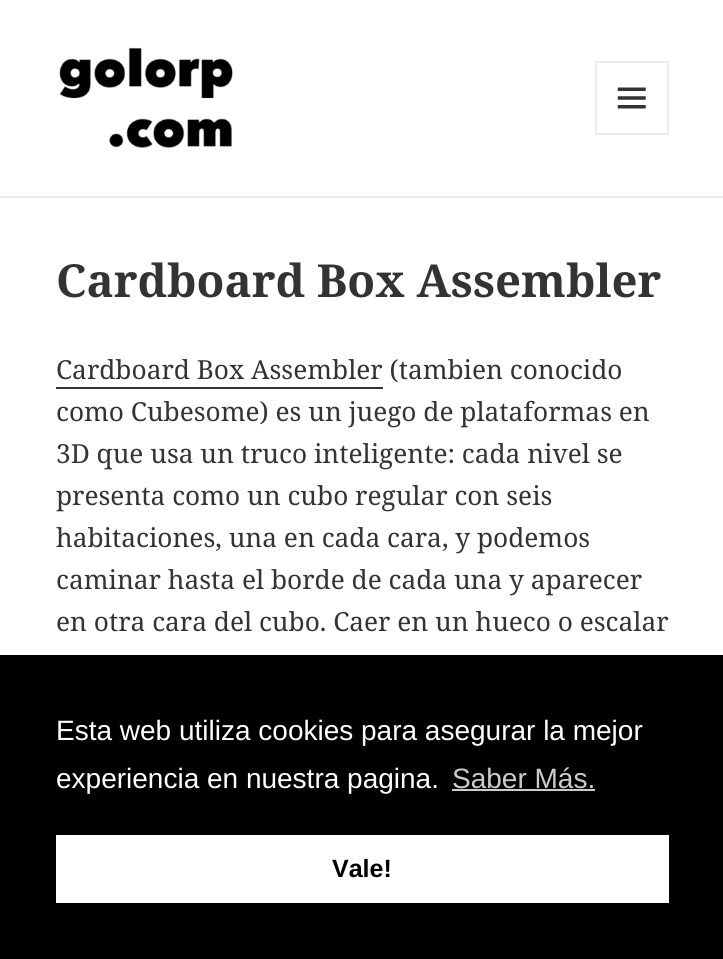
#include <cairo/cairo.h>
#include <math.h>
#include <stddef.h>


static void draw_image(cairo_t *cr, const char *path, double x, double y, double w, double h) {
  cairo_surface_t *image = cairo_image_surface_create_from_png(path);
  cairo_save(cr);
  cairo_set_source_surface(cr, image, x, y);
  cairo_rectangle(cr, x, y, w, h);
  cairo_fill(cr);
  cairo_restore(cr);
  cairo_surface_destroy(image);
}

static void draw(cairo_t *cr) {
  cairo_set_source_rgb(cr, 1, 1, 1);
  cairo_paint(cr);
  cairo_set_source_rgb(cr, 235 / 255.0, 235 / 255.0, 235 / 255.0);
  cairo_rectangle(cr, 0, 196, 723, 2);
  cairo_fill(cr);
  draw_image(cr, "images/1.png", 59, 47, 174, 101);
  cairo_rectangle(cr, 596, 62, 72, 72);
  cairo_stroke(cr);
  draw_image(cr, "images/2.png", 617, 87, 29, 22);
  cairo_set_source_rgb(cr, 51 / 255.0, 51 / 255.0, 51 / 255.0);
  cairo_rectangle(cr, 56, 387, 327, 2);
  cairo_fill(cr);
  cairo_set_source_rgb(cr, 0, 0, 0);
  cairo_rectangle(cr, 0, 655, 723, 304);
  cairo_fill(cr);
  cairo_set_source_rgb(cr, 204 / 255.0, 204 / 255.0, 204 / 255.0);
  cairo_rectangle(cr, 452, 789, 143, 2);
  cairo_fill(cr);
  cairo_set_source_rgb(cr, 1, 1, 1);
  cairo_rectangle(cr, 56, 835, 613, 68);
  cairo_fill(cr);
  cairo_select_font_face(cr, "Noto Serif", CAIRO_FONT_SLANT_NORMAL, CAIRO_FONT_WEIGHT_BOLD);
  cairo_set_font_size(cr, 45.5);
  cairo_set_source_rgb(cr, 51 / 255.0, 51 / 255.0, 51 / 255.0);
  cairo_move_to(cr, 56, 297);
  cairo_show_text(cr, "Cardboard Box Assembler");
  cairo_select_font_face(cr, "Noto Serif", CAIRO_FONT_SLANT_NORMAL, CAIRO_FONT_WEIGHT_NORMAL);
  cairo_set_font_size(cr, 26.25);
  cairo_move_to(cr, 56, 379);
  cairo_show_text(cr, "Cardboard Box Assembler (tambien conocido");
  cairo_move_to(cr, 56, 421);
  cairo_show_text(cr, "como Cubesome) es un juego de plataformas en");
  cairo_move_to(cr, 56, 463);
  cairo_show_text(cr, "3D que usa un truco inteligente: cada nivel se");
  cairo_move_to(cr, 56, 505);
  cairo_show_text(cr, "presenta como un cubo regular con seis");
  cairo_move_to(cr, 56, 547);
  cairo_show_text(cr, "habitaciones, una en cada cara, y podemos");
  cairo_move_to(cr, 56, 589);
  cairo_show_text(cr, "caminar hasta el borde de cada una y aparecer");
  cairo_move_to(cr, 56, 631);
  cairo_show_text(cr, "en otra cara del cubo. Caer en un hueco o escalar");
  cairo_select_font_face(cr, "Liberation Sans", CAIRO_FONT_SLANT_NORMAL, CAIRO_FONT_WEIGHT_NORMAL);
  cairo_set_font_size(cr, 28);
  cairo_set_source_rgb(cr, 1, 1, 1);
  cairo_move_to(cr, 56, 740);
  cairo_show_text(cr, "Esta web utiliza cookies para asegurar la mejor");
  cairo_move_to(cr, 56, 788);
  cairo_show_text(cr, "experiencia en nuestra pagina.");
  cairo_set_source_rgb(cr, 204 / 255.0, 204 / 255.0, 204 / 255.0);
  cairo_move_to(cr, 452, 788);
  cairo_show_text(cr, "Saber Más.");
  cairo_select_font_face(cr, "Liberation Sans", CAIRO_FONT_SLANT_NORMAL, CAIRO_FONT_WEIGHT_BOLD);
  cairo_set_font_size(cr, 25);
  cairo_set_source_rgb(cr, 0, 0, 0);
  cairo_move_to(cr, 332, 877);
  cairo_show_text(cr, "Vale!");
}

int main(void) {
  cairo_surface_t *surface = cairo_image_surface_create(CAIRO_FORMAT_RGB24, 723, 959);
  cairo_t *cr = cairo_create(surface);
  cairo_font_options_t *options = cairo_font_options_create();
  cairo_font_options_set_hint_metrics(options, CAIRO_HINT_METRICS_OFF);
  cairo_font_options_set_hint_style(options, CAIRO_HINT_STYLE_NONE);
  cairo_set_font_options(cr, options);
  cairo_set_miter_limit(cr, 4);
  draw(cr);
  cairo_surface_write_to_png(surface, "out.png");
  cairo_font_options_destroy(options);
  cairo_destroy(cr);
  cairo_surface_destroy(surface);
  return 0;
}
